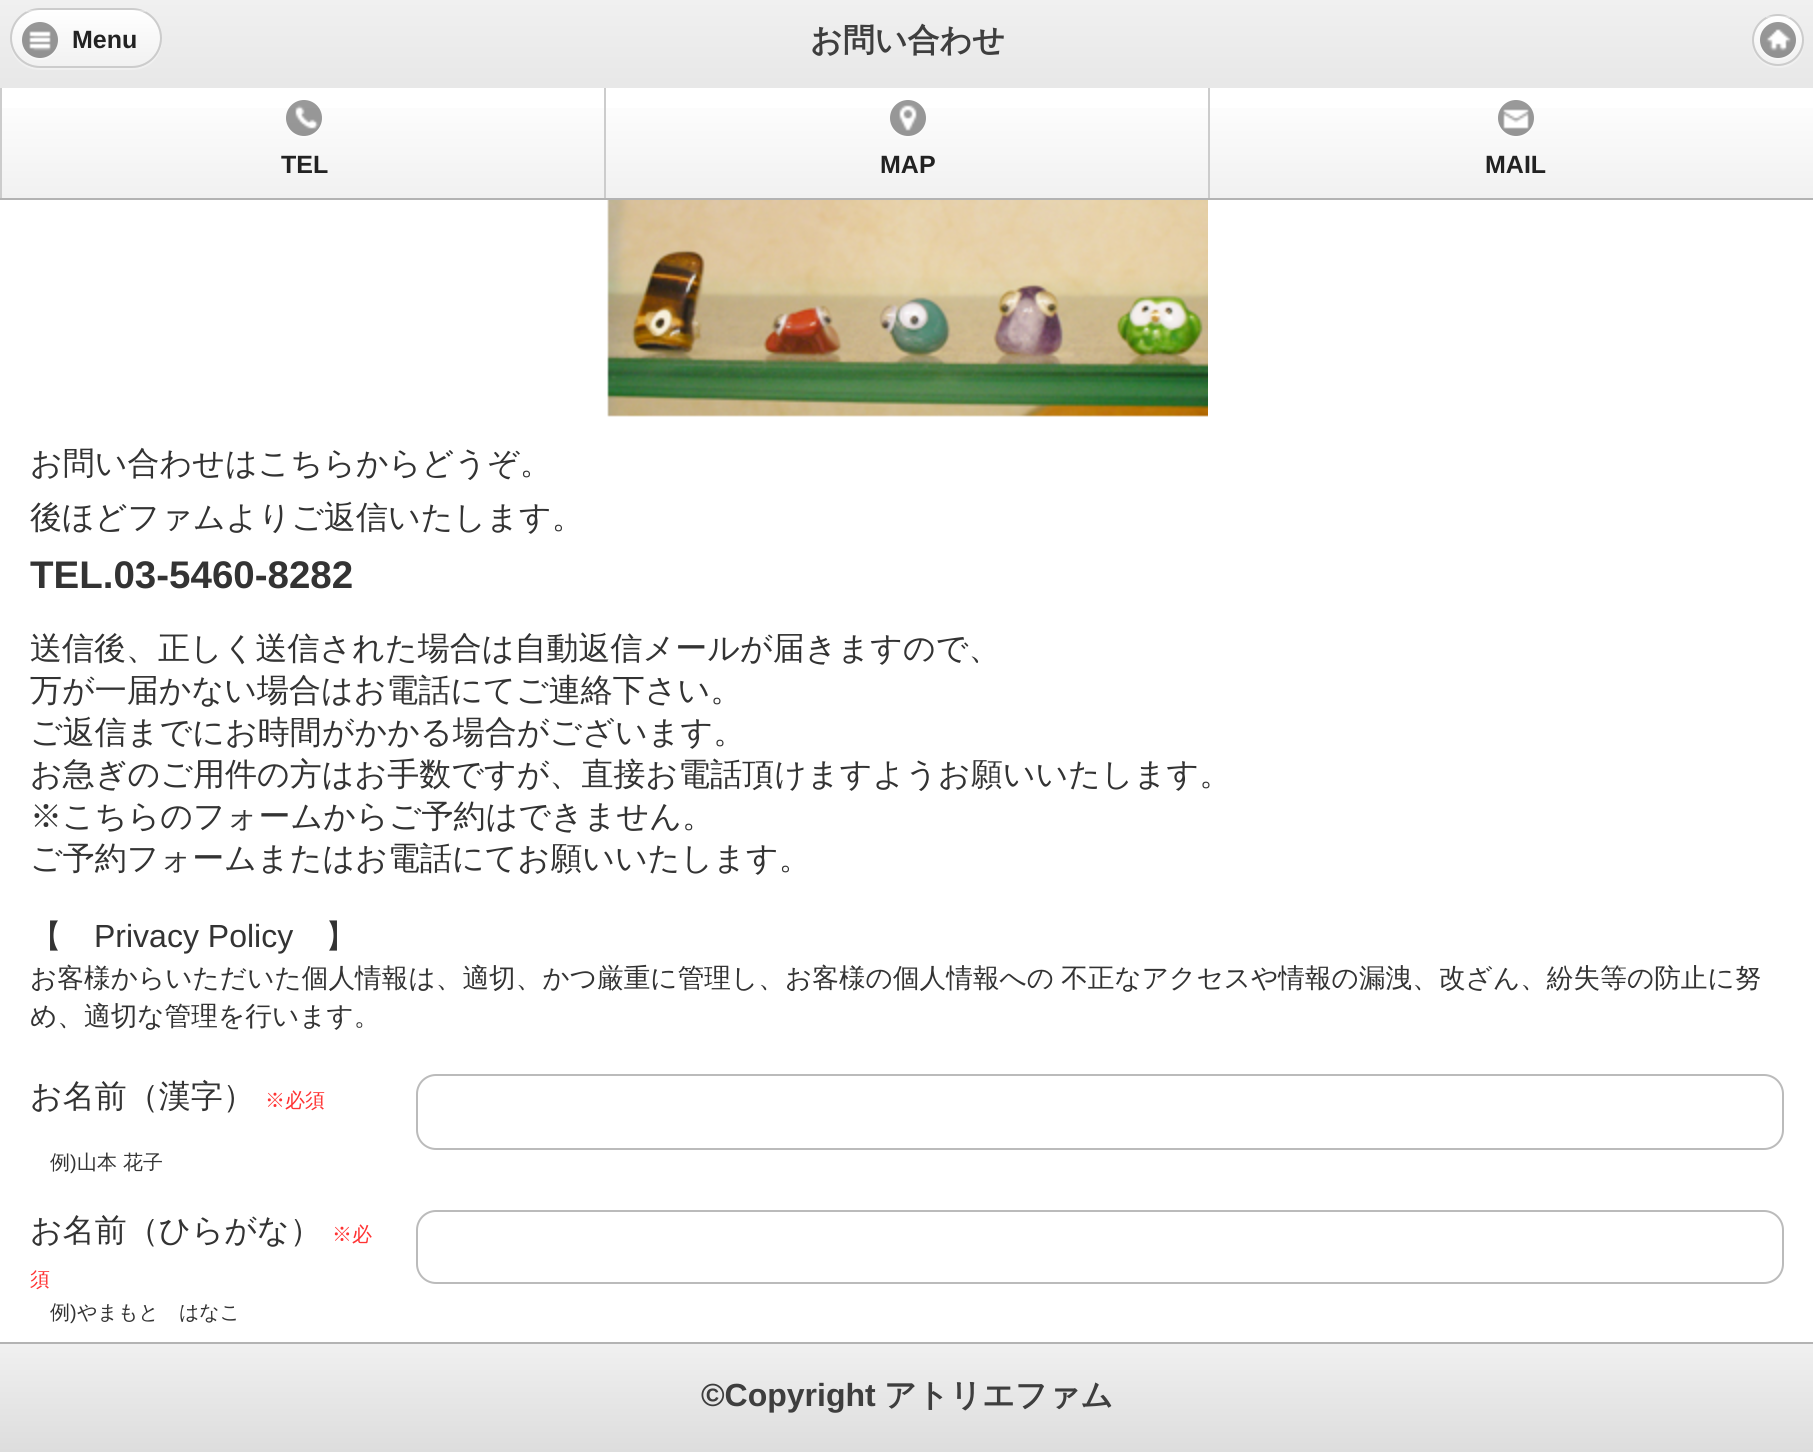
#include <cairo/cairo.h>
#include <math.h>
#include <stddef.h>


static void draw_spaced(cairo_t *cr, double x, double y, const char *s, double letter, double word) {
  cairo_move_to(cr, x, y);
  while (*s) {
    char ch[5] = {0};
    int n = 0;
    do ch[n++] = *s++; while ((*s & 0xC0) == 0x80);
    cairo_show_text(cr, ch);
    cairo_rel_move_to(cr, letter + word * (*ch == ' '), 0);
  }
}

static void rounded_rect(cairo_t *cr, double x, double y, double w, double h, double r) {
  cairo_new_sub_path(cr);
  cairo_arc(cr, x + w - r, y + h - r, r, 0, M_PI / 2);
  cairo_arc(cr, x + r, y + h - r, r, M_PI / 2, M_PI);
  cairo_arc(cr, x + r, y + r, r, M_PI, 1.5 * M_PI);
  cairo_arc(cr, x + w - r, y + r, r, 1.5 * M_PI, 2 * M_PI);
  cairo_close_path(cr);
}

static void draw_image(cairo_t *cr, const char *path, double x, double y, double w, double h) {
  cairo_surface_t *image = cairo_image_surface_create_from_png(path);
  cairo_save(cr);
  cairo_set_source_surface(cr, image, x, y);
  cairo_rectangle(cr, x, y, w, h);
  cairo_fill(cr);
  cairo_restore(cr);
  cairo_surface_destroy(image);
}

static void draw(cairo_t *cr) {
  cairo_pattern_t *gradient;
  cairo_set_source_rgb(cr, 1, 1, 1);
  cairo_paint(cr);
  gradient = cairo_pattern_create_linear(907, 0, 907, 198);
  cairo_pattern_add_color_stop_rgba(gradient, 0, 240 / 255.0, 240 / 255.0, 240 / 255.0, 1);
  cairo_pattern_add_color_stop_rgba(gradient, 1, 221 / 255.0, 221 / 255.0, 221 / 255.0, 1);
  cairo_set_source(cr, gradient);
  cairo_pattern_destroy(gradient);
  cairo_rectangle(cr, 0, 0, 1813, 88);
  cairo_fill(cr);
  cairo_set_source_rgb(cr, 179 / 255.0, 179 / 255.0, 179 / 255.0);
  cairo_rectangle(cr, 0, 198, 1813, 2);
  cairo_fill(cr);
  cairo_set_source_rgba(cr, 1, 1, 1, 0.3);
  cairo_new_path(cr);
  cairo_move_to(cr, 10, 39);
  cairo_line_to(cr, 10, 40);
  cairo_curve_to(cr, 10, 57, 23, 70, 40, 70);
  cairo_line_to(cr, 132, 70);
  cairo_curve_to(cr, 149, 70, 162, 57, 162, 40);
  cairo_line_to(cr, 162, 39);
  cairo_curve_to(cr, 161, 55, 148, 68, 132, 68);
  cairo_line_to(cr, 40, 68);
  cairo_curve_to(cr, 24, 68, 11, 55, 10, 39);
  cairo_close_path(cr);
  cairo_fill(cr);
  gradient = cairo_pattern_create_linear(86, 10, 86, 66);
  cairo_pattern_add_color_stop_rgba(gradient, 0, 1, 1, 1, 1);
  cairo_pattern_add_color_stop_rgba(gradient, 1, 241 / 255.0, 241 / 255.0, 241 / 255.0, 1);
  cairo_set_source(cr, gradient);
  cairo_pattern_destroy(gradient);
  rounded_rect(cr, 12, 10, 148, 56, 28);
  cairo_fill(cr);
  rounded_rect(cr, 11, 9, 150, 58, 29);
  cairo_set_source_rgb(cr, 204 / 255.0, 204 / 255.0, 204 / 255.0);
  cairo_stroke(cr);
  cairo_set_source_rgba(cr, 1, 1, 1, 0.3);
  cairo_rectangle(cr, 26, 10, 120, 2);
  cairo_fill(cr);
  cairo_set_source_rgba(cr, 1, 1, 1, 0.4);
  cairo_new_path(cr);
  cairo_move_to(cr, 22, 41);
  cairo_curve_to(cr, 21, 59, 45, 67, 55, 52);
  cairo_curve_to(cr, 57, 49, 58, 45, 58, 41);
  cairo_curve_to(cr, 56.5, 63.5, 23.5, 63.5, 22, 41);
  cairo_close_path(cr);
  cairo_fill(cr);
  cairo_set_source_rgba(cr, 0, 0, 0, 0.4);
  cairo_arc(cr, 40, 40, 18, 0, 2 * M_PI);
  cairo_fill(cr);
  draw_image(cr, "images/1.png", 29, 31, 22, 20);
  cairo_set_source_rgb(cr, 240 / 255.0, 240 / 255.0, 240 / 255.0);
  cairo_new_path(cr);
  cairo_move_to(cr, 1752, 41);
  cairo_curve_to(cr, 1751, 67, 1785, 78, 1800, 57);
  cairo_curve_to(cr, 1803, 52, 1804, 46, 1804, 41);
  cairo_curve_to(cr, 1803, 74, 1753, 74, 1752, 41);
  cairo_close_path(cr);
  cairo_fill(cr);
  gradient = cairo_pattern_create_linear(1778, 16, 1778, 64);
  cairo_pattern_add_color_stop_rgba(gradient, 0, 1, 1, 1, 1);
  cairo_pattern_add_color_stop_rgba(gradient, 1, 241 / 255.0, 241 / 255.0, 241 / 255.0, 1);
  cairo_set_source(cr, gradient);
  cairo_pattern_destroy(gradient);
  cairo_arc(cr, 1778, 40, 24, 0, 2 * M_PI);
  cairo_fill(cr);
  cairo_arc(cr, 1778, 40, 25, 0, 2 * M_PI);
  cairo_set_source_rgb(cr, 204 / 255.0, 204 / 255.0, 204 / 255.0);
  cairo_stroke(cr);
  cairo_set_source_rgba(cr, 1, 1, 1, 0.3);
  cairo_rectangle(cr, 1766, 16, 24, 2);
  cairo_fill(cr);
  cairo_set_source_rgba(cr, 1, 1, 1, 0.4);
  cairo_new_path(cr);
  cairo_move_to(cr, 1796, 41);
  cairo_curve_to(cr, 1794.5, 63.5, 1761.5, 63.5, 1760, 41);
  cairo_curve_to(cr, 1759, 59, 1783, 67, 1793, 52);
  cairo_curve_to(cr, 1795, 49, 1796, 45, 1796, 41);
  cairo_close_path(cr);
  cairo_fill(cr);
  cairo_set_source_rgba(cr, 0, 0, 0, 0.4);
  cairo_arc(cr, 1778, 40, 18, 0, 2 * M_PI);
  cairo_fill(cr);
  draw_image(cr, "images/2.png", 1766, 29, 25, 22);
  gradient = cairo_pattern_create_linear(304, 88, 304, 198);
  cairo_pattern_add_color_stop_rgba(gradient, 0, 1, 1, 1, 1);
  cairo_pattern_add_color_stop_rgba(gradient, 1, 241 / 255.0, 241 / 255.0, 241 / 255.0, 1);
  cairo_set_source(cr, gradient);
  cairo_pattern_destroy(gradient);
  cairo_rectangle(cr, 2, 108, 602, 90);
  cairo_fill(cr);
  cairo_set_source_rgb(cr, 204 / 255.0, 204 / 255.0, 204 / 255.0);
  cairo_rectangle(cr, 0, 88, 2, 110);
  cairo_fill(cr);
  cairo_set_source_rgb(cr, 252 / 255.0, 252 / 255.0, 252 / 255.0);
  cairo_new_path(cr);
  cairo_move_to(cr, 322, 119);
  cairo_curve_to(cr, 320.5, 141.5, 287.5, 141.5, 286, 119);
  cairo_curve_to(cr, 286, 123, 287, 127, 289, 130);
  cairo_curve_to(cr, 299, 145, 323, 137, 322, 119);
  cairo_close_path(cr);
  cairo_fill(cr);
  cairo_set_source_rgba(cr, 0, 0, 0, 0.4);
  cairo_arc(cr, 304, 118, 18, 0, 2 * M_PI);
  cairo_fill(cr);
  draw_image(cr, "images/3.png", 295, 105, 24, 24);
  gradient = cairo_pattern_create_linear(908, 88, 908, 198);
  cairo_pattern_add_color_stop_rgba(gradient, 0, 1, 1, 1, 1);
  cairo_pattern_add_color_stop_rgba(gradient, 1, 241 / 255.0, 241 / 255.0, 241 / 255.0, 1);
  cairo_set_source(cr, gradient);
  cairo_pattern_destroy(gradient);
  cairo_rectangle(cr, 606, 108, 602, 90);
  cairo_fill(cr);
  cairo_set_source_rgb(cr, 204 / 255.0, 204 / 255.0, 204 / 255.0);
  cairo_rectangle(cr, 604, 88, 2, 110);
  cairo_fill(cr);
  cairo_set_source_rgb(cr, 252 / 255.0, 252 / 255.0, 252 / 255.0);
  cairo_new_path(cr);
  cairo_move_to(cr, 890, 119);
  cairo_curve_to(cr, 890, 123, 891, 127, 893, 130);
  cairo_curve_to(cr, 903, 145, 927, 137, 926, 119);
  cairo_curve_to(cr, 924.5, 141.5, 891.5, 141.5, 890, 119);
  cairo_close_path(cr);
  cairo_fill(cr);
  cairo_set_source_rgba(cr, 0, 0, 0, 0.4);
  cairo_arc(cr, 908, 118, 18, 0, 2 * M_PI);
  cairo_fill(cr);
  draw_image(cr, "images/4.png", 899, 105, 18, 26);
  gradient = cairo_pattern_create_linear(1516, 88, 1516, 198);
  cairo_pattern_add_color_stop_rgba(gradient, 0, 1, 1, 1, 1);
  cairo_pattern_add_color_stop_rgba(gradient, 1, 241 / 255.0, 241 / 255.0, 241 / 255.0, 1);
  cairo_set_source(cr, gradient);
  cairo_pattern_destroy(gradient);
  cairo_rectangle(cr, 1210, 108, 603, 90);
  cairo_fill(cr);
  cairo_set_source_rgb(cr, 204 / 255.0, 204 / 255.0, 204 / 255.0);
  cairo_rectangle(cr, 1208, 88, 2, 110);
  cairo_fill(cr);
  cairo_set_source_rgb(cr, 252 / 255.0, 252 / 255.0, 252 / 255.0);
  cairo_new_path(cr);
  cairo_move_to(cr, 1534, 119);
  cairo_curve_to(cr, 1532.5, 141.5, 1499.5, 141.5, 1498, 119);
  cairo_curve_to(cr, 1498, 123, 1499, 127, 1501, 130);
  cairo_curve_to(cr, 1511, 145, 1535, 137, 1534, 119);
  cairo_close_path(cr);
  cairo_fill(cr);
  cairo_set_source_rgba(cr, 0, 0, 0, 0.4);
  cairo_arc(cr, 1516, 118, 18, 0, 2 * M_PI);
  cairo_fill(cr);
  draw_image(cr, "images/5.png", 1503, 109, 26, 20);
  draw_image(cr, "images/6.png", 607, 200, 601, 217);
  rounded_rect(cr, 417, 1075, 1366, 74, 19);
  cairo_set_source_rgb(cr, 187 / 255.0, 187 / 255.0, 187 / 255.0);
  cairo_stroke(cr);
  rounded_rect(cr, 417, 1211, 1366, 72, 19);
  cairo_stroke(cr);
  gradient = cairo_pattern_create_linear(907, 1344, 907, 1452);
  cairo_pattern_add_color_stop_rgba(gradient, 0, 240 / 255.0, 240 / 255.0, 240 / 255.0, 1);
  cairo_pattern_add_color_stop_rgba(gradient, 1, 221 / 255.0, 221 / 255.0, 221 / 255.0, 1);
  cairo_set_source(cr, gradient);
  cairo_pattern_destroy(gradient);
  cairo_rectangle(cr, 0, 1344, 1813, 108);
  cairo_fill(cr);
  cairo_set_source_rgb(cr, 179 / 255.0, 179 / 255.0, 179 / 255.0);
  cairo_rectangle(cr, 0, 1342, 1813, 2);
  cairo_fill(cr);
  cairo_select_font_face(cr, "Liberation Sans", CAIRO_FONT_SLANT_NORMAL, CAIRO_FONT_WEIGHT_BOLD);
  cairo_set_font_size(cr, 25);
  cairo_set_source_rgb(cr, 34 / 255.0, 34 / 255.0, 34 / 255.0);
  cairo_move_to(cr, 72, 48);
  cairo_show_text(cr, "Menu");
  cairo_select_font_face(cr, "WenQuanYi Zen Hei", CAIRO_FONT_SLANT_NORMAL, CAIRO_FONT_WEIGHT_BOLD);
  cairo_set_font_size(cr, 32);
  cairo_set_source_rgb(cr, 62 / 255.0, 62 / 255.0, 62 / 255.0);
  cairo_move_to(cr, 810, 51);
  cairo_show_text(cr, "お問い合わせ");
  cairo_select_font_face(cr, "Liberation Sans", CAIRO_FONT_SLANT_NORMAL, CAIRO_FONT_WEIGHT_BOLD);
  cairo_set_font_size(cr, 25);
  cairo_set_source_rgb(cr, 34 / 255.0, 34 / 255.0, 34 / 255.0);
  cairo_move_to(cr, 281, 173);
  cairo_show_text(cr, "TEL");
  cairo_move_to(cr, 880, 173);
  cairo_show_text(cr, "MAP");
  cairo_move_to(cr, 1485, 173);
  cairo_show_text(cr, "MAIL");
  cairo_select_font_face(cr, "WenQuanYi Zen Hei Medium", CAIRO_FONT_SLANT_NORMAL, CAIRO_FONT_WEIGHT_NORMAL);
  cairo_set_font_size(cr, 32);
  cairo_set_source_rgb(cr, 51 / 255.0, 51 / 255.0, 51 / 255.0);
  cairo_move_to(cr, 30, 474);
  cairo_show_text(cr, "お問い合わせはこちらからどうぞ。");
  cairo_move_to(cr, 30, 528);
  cairo_show_text(cr, "後ほどファムよりご返信いたします。");
  cairo_select_font_face(cr, "Liberation Sans", CAIRO_FONT_SLANT_NORMAL, CAIRO_FONT_WEIGHT_BOLD);
  cairo_set_font_size(cr, 38.5);
  cairo_move_to(cr, 30, 588);
  cairo_show_text(cr, "TEL.03-5460-8282");
  cairo_select_font_face(cr, "WenQuanYi Zen Hei Medium", CAIRO_FONT_SLANT_NORMAL, CAIRO_FONT_WEIGHT_NORMAL);
  cairo_set_font_size(cr, 32);
  cairo_move_to(cr, 30, 659);
  cairo_show_text(cr, "送信後、正しく送信された場合は自動返信メールが届きますので、");
  cairo_move_to(cr, 30, 701);
  cairo_show_text(cr, "万が一届かない場合はお電話にてご連絡下さい。");
  cairo_move_to(cr, 30, 743);
  cairo_show_text(cr, "ご返信までにお時間がかかる場合がございます。");
  cairo_move_to(cr, 30, 785);
  cairo_show_text(cr, "お急ぎのご用件の方はお手数ですが、直接お電話頂けますようお願いいたします。");
  cairo_move_to(cr, 30, 827);
  cairo_show_text(cr, "※こちらのフォームからご予約はできません。");
  cairo_move_to(cr, 30, 869);
  cairo_show_text(cr, "ご予約フォームまたはお電話にてお願いいたします。");
  cairo_move_to(cr, 30, 947);
  cairo_show_text(cr, "【");
  cairo_select_font_face(cr, "Liberation Sans", CAIRO_FONT_SLANT_NORMAL, CAIRO_FONT_WEIGHT_NORMAL);
  cairo_move_to(cr, 94, 947);
  cairo_show_text(cr, "Privacy Policy");
  cairo_select_font_face(cr, "WenQuanYi Zen Hei Medium", CAIRO_FONT_SLANT_NORMAL, CAIRO_FONT_WEIGHT_NORMAL);
  cairo_move_to(cr, 325, 947);
  cairo_show_text(cr, "】");
  cairo_set_font_size(cr, 26.67);
  draw_spaced(cr, 30, 987, "お客様からいただいた個人情報は、適切、かつ厳重に管理し、お客様の個人情報への 不正なアクセスや情報の漏洩、改ざん、紛失等の防止に努", 0, -1);
  cairo_move_to(cr, 30, 1025);
  cairo_show_text(cr, "め、適切な管理を行います。");
  cairo_set_font_size(cr, 32);
  cairo_move_to(cr, 30, 1107);
  cairo_show_text(cr, "お名前（漢字）");
  cairo_set_font_size(cr, 20);
  cairo_set_source_rgb(cr, 1, 51 / 255.0, 51 / 255.0);
  cairo_move_to(cr, 265, 1107);
  cairo_show_text(cr, "※必須");
  cairo_set_source_rgb(cr, 51 / 255.0, 51 / 255.0, 51 / 255.0);
  cairo_move_to(cr, 50, 1169);
  cairo_show_text(cr, "例");
  cairo_select_font_face(cr, "Liberation Sans", CAIRO_FONT_SLANT_NORMAL, CAIRO_FONT_WEIGHT_NORMAL);
  cairo_move_to(cr, 70, 1169);
  cairo_show_text(cr, ")");
  cairo_select_font_face(cr, "WenQuanYi Zen Hei Medium", CAIRO_FONT_SLANT_NORMAL, CAIRO_FONT_WEIGHT_NORMAL);
  cairo_move_to(cr, 77, 1169);
  cairo_show_text(cr, "山本 花子");
  cairo_set_font_size(cr, 32);
  cairo_move_to(cr, 30, 1241);
  cairo_show_text(cr, "お名前（ひらがな）");
  cairo_set_font_size(cr, 20);
  cairo_set_source_rgb(cr, 1, 51 / 255.0, 51 / 255.0);
  cairo_move_to(cr, 332, 1241);
  cairo_show_text(cr, "※必");
  cairo_move_to(cr, 30, 1286);
  cairo_show_text(cr, "須");
  cairo_set_source_rgb(cr, 51 / 255.0, 51 / 255.0, 51 / 255.0);
  cairo_move_to(cr, 50, 1319);
  cairo_show_text(cr, "例");
  cairo_select_font_face(cr, "Liberation Sans", CAIRO_FONT_SLANT_NORMAL, CAIRO_FONT_WEIGHT_NORMAL);
  cairo_move_to(cr, 70, 1319);
  cairo_show_text(cr, ")");
  cairo_select_font_face(cr, "WenQuanYi Zen Hei Medium", CAIRO_FONT_SLANT_NORMAL, CAIRO_FONT_WEIGHT_NORMAL);
  cairo_move_to(cr, 77, 1319);
  cairo_show_text(cr, "やまもと　はなこ");
  cairo_select_font_face(cr, "Liberation Sans", CAIRO_FONT_SLANT_NORMAL, CAIRO_FONT_WEIGHT_BOLD);
  cairo_set_font_size(cr, 32);
  cairo_set_source_rgb(cr, 62 / 255.0, 62 / 255.0, 62 / 255.0);
  cairo_move_to(cr, 701, 1406);
  cairo_show_text(cr, "©Copyright");
  cairo_select_font_face(cr, "WenQuanYi Zen Hei", CAIRO_FONT_SLANT_NORMAL, CAIRO_FONT_WEIGHT_BOLD);
  cairo_move_to(cr, 884, 1406);
  cairo_show_text(cr, "アトリエファム");
}

int main(void) {
  cairo_surface_t *surface = cairo_image_surface_create(CAIRO_FORMAT_RGB24, 1813, 1452);
  cairo_t *cr = cairo_create(surface);
  cairo_font_options_t *options = cairo_font_options_create();
  cairo_font_options_set_hint_metrics(options, CAIRO_HINT_METRICS_OFF);
  cairo_font_options_set_hint_style(options, CAIRO_HINT_STYLE_NONE);
  cairo_set_font_options(cr, options);
  cairo_set_miter_limit(cr, 4);
  draw(cr);
  cairo_surface_write_to_png(surface, "out.png");
  cairo_font_options_destroy(options);
  cairo_destroy(cr);
  cairo_surface_destroy(surface);
  return 0;
}
